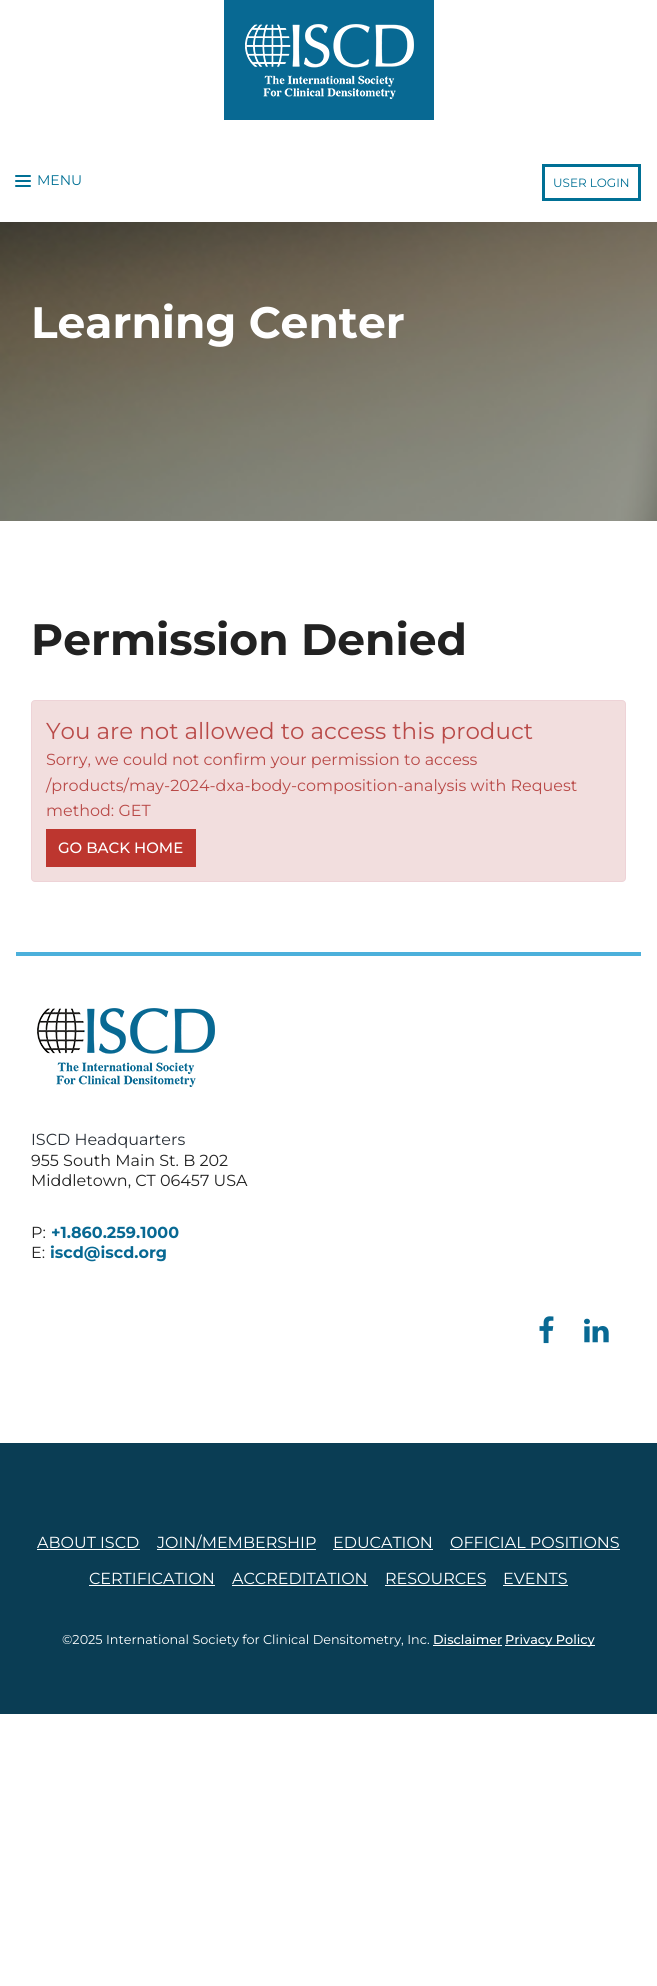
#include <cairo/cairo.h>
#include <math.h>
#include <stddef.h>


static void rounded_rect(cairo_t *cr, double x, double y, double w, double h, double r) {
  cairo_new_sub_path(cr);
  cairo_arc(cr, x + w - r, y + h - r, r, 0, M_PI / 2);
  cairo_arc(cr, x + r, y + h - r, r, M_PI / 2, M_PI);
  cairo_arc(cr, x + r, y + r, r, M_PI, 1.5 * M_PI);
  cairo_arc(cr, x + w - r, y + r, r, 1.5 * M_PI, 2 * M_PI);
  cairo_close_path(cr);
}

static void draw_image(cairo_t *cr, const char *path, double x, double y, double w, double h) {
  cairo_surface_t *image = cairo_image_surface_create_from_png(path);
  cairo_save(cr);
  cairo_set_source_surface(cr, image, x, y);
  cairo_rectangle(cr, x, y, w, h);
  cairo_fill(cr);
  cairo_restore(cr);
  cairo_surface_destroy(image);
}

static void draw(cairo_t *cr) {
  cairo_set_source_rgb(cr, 1, 1, 1);
  cairo_paint(cr);
  cairo_set_source_rgb(cr, 8 / 255.0, 105 / 255.0, 147 / 255.0);
  cairo_rectangle(cr, 224, 0, 210, 120);
  cairo_fill(cr);
  draw_image(cr, "images/1.png", 245, 24, 169, 75);
  cairo_set_source_rgb(cr, 0, 112 / 255.0, 149 / 255.0);
  rounded_rect(cr, 15, 175, 16, 2, 1);
  cairo_fill(cr);
  rounded_rect(cr, 15, 180, 16, 2, 1);
  cairo_fill(cr);
  rounded_rect(cr, 15, 185, 16, 2, 1);
  cairo_fill(cr);
  cairo_rectangle(cr, 543.5, 165.5, 96, 34);
  cairo_set_line_width(cr, 3);
  cairo_stroke(cr);
  draw_image(cr, "images/2.png", 0, 222, 657, 299);
  cairo_set_source_rgb(cr, 242 / 255.0, 222 / 255.0, 222 / 255.0);
  rounded_rect(cr, 31.5, 700.5, 594, 181, 3.5);
  cairo_fill_preserve(cr);
  cairo_set_source_rgb(cr, 238 / 255.0, 211 / 255.0, 215 / 255.0);
  cairo_set_line_width(cr, 1);
  cairo_stroke(cr);
  cairo_set_source_rgb(cr, 189 / 255.0, 54 / 255.0, 47 / 255.0);
  cairo_rectangle(cr, 46, 829, 150, 38);
  cairo_fill(cr);
  cairo_set_source_rgb(cr, 76 / 255.0, 176 / 255.0, 219 / 255.0);
  cairo_rectangle(cr, 16, 952, 625, 4);
  cairo_fill(cr);
  draw_image(cr, "images/3.png", 37, 1008, 178, 79);
  draw_image(cr, "images/4.png", 539, 1316, 15, 28);
  draw_image(cr, "images/5.png", 584, 1318, 25, 25);
  cairo_set_source_rgb(cr, 10 / 255.0, 61 / 255.0, 84 / 255.0);
  cairo_rectangle(cr, 0, 1443, 657, 271);
  cairo_fill(cr);
  cairo_set_source_rgb(cr, 1, 1, 1);
  cairo_rectangle(cr, 37, 1549, 103, 1);
  cairo_fill(cr);
  cairo_rectangle(cr, 157, 1549, 159, 1);
  cairo_fill(cr);
  cairo_rectangle(cr, 333, 1549, 100, 1);
  cairo_fill(cr);
  cairo_rectangle(cr, 450, 1549, 170, 1);
  cairo_fill(cr);
  cairo_rectangle(cr, 89, 1585, 126, 1);
  cairo_fill(cr);
  cairo_rectangle(cr, 232, 1585, 136, 1);
  cairo_fill(cr);
  cairo_rectangle(cr, 385, 1585, 101, 1);
  cairo_fill(cr);
  cairo_rectangle(cr, 503, 1585, 65, 1);
  cairo_fill(cr);
  cairo_rectangle(cr, 433, 1645, 69, 1);
  cairo_fill(cr);
  cairo_rectangle(cr, 505, 1645, 90, 1);
  cairo_fill(cr);
  cairo_select_font_face(cr, "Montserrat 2 Thin", CAIRO_FONT_SLANT_NORMAL, CAIRO_FONT_WEIGHT_NORMAL);
  cairo_set_font_size(cr, 14);
  cairo_set_source_rgb(cr, 0, 112 / 255.0, 149 / 255.0);
  cairo_move_to(cr, 37, 185);
  cairo_show_text(cr, "MENU");
  cairo_set_font_size(cr, 12);
  cairo_move_to(cr, 553, 187);
  cairo_show_text(cr, "USER LOGIN");
  cairo_select_font_face(cr, "Montserrat Thin", CAIRO_FONT_SLANT_NORMAL, CAIRO_FONT_WEIGHT_NORMAL);
  cairo_set_font_size(cr, 44);
  cairo_set_source_rgb(cr, 1, 1, 1);
  cairo_move_to(cr, 31, 338);
  cairo_show_text(cr, "Learning Center");
  cairo_set_source_rgb(cr, 34 / 255.0, 34 / 255.0, 34 / 255.0);
  cairo_move_to(cr, 31, 655);
  cairo_show_text(cr, "Permission Denied");
  cairo_select_font_face(cr, "Montserrat 2 Thin", CAIRO_FONT_SLANT_NORMAL, CAIRO_FONT_WEIGHT_NORMAL);
  cairo_set_font_size(cr, 23);
  cairo_set_source_rgb(cr, 185 / 255.0, 74 / 255.0, 72 / 255.0);
  cairo_move_to(cr, 46, 739);
  cairo_show_text(cr, "You are not allowed to access this product");
  cairo_set_font_size(cr, 16);
  cairo_move_to(cr, 46, 765);
  cairo_show_text(cr, "Sorry, we could not confirm your permission to access");
  cairo_move_to(cr, 46, 791);
  cairo_show_text(cr, "/products/may-2024-dxa-body-composition-analysis with Request");
  cairo_move_to(cr, 46, 816);
  cairo_show_text(cr, "method: GET");
  cairo_select_font_face(cr, "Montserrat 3 Thin", CAIRO_FONT_SLANT_NORMAL, CAIRO_FONT_WEIGHT_NORMAL);
  cairo_set_font_size(cr, 15);
  cairo_set_source_rgb(cr, 1, 1, 1);
  cairo_move_to(cr, 58, 853);
  cairo_show_text(cr, "GO BACK HOME");
  cairo_select_font_face(cr, "Montserrat 2 Thin", CAIRO_FONT_SLANT_NORMAL, CAIRO_FONT_WEIGHT_NORMAL);
  cairo_set_font_size(cr, 16);
  cairo_set_source_rgb(cr, 41 / 255.0, 48 / 255.0, 56 / 255.0);
  cairo_move_to(cr, 31, 1145);
  cairo_show_text(cr, "ISCD Headquarters");
  cairo_set_source_rgb(cr, 34 / 255.0, 34 / 255.0, 34 / 255.0);
  cairo_move_to(cr, 31, 1166);
  cairo_show_text(cr, "955 South Main St. B 202");
  cairo_move_to(cr, 31, 1186);
  cairo_show_text(cr, "Middletown, CT 06457 USA");
  cairo_move_to(cr, 31, 1238);
  cairo_show_text(cr, "P:");
  cairo_select_font_face(cr, "Montserrat Thin", CAIRO_FONT_SLANT_NORMAL, CAIRO_FONT_WEIGHT_NORMAL);
  cairo_set_source_rgb(cr, 8 / 255.0, 105 / 255.0, 147 / 255.0);
  cairo_move_to(cr, 51, 1238);
  cairo_show_text(cr, "+1.860.259.1000");
  cairo_select_font_face(cr, "Montserrat 2 Thin", CAIRO_FONT_SLANT_NORMAL, CAIRO_FONT_WEIGHT_NORMAL);
  cairo_set_source_rgb(cr, 34 / 255.0, 34 / 255.0, 34 / 255.0);
  cairo_move_to(cr, 31, 1258);
  cairo_show_text(cr, "E:");
  cairo_select_font_face(cr, "Montserrat Thin", CAIRO_FONT_SLANT_NORMAL, CAIRO_FONT_WEIGHT_NORMAL);
  cairo_set_source_rgb(cr, 8 / 255.0, 105 / 255.0, 147 / 255.0);
  cairo_move_to(cr, 50, 1258);
  cairo_show_text(cr, "iscd@iscd.org");
  cairo_select_font_face(cr, "Montserrat 2 Thin", CAIRO_FONT_SLANT_NORMAL, CAIRO_FONT_WEIGHT_NORMAL);
  cairo_set_source_rgb(cr, 1, 1, 1);
  cairo_move_to(cr, 37, 1548);
  cairo_show_text(cr, "ABOUT ISCD");
  cairo_move_to(cr, 157, 1548);
  cairo_show_text(cr, "JOIN/MEMBERSHIP");
  cairo_move_to(cr, 333, 1548);
  cairo_show_text(cr, "EDUCATION");
  cairo_move_to(cr, 450, 1548);
  cairo_show_text(cr, "OFFICIAL POSITIONS");
  cairo_move_to(cr, 89, 1584);
  cairo_show_text(cr, "CERTIFICATION");
  cairo_move_to(cr, 232, 1584);
  cairo_show_text(cr, "ACCREDITATION");
  cairo_move_to(cr, 385, 1584);
  cairo_show_text(cr, "RESOURCES");
  cairo_move_to(cr, 503, 1584);
  cairo_show_text(cr, "EVENTS");
  cairo_set_font_size(cr, 12.8);
  cairo_move_to(cr, 62, 1644);
  cairo_show_text(cr, "©2025 International Society for Clinical Densitometry, Inc.");
  cairo_select_font_face(cr, "Montserrat 3 Thin", CAIRO_FONT_SLANT_NORMAL, CAIRO_FONT_WEIGHT_NORMAL);
  cairo_move_to(cr, 433, 1644);
  cairo_show_text(cr, "Disclaimer");
  cairo_move_to(cr, 505, 1644);
  cairo_show_text(cr, "Privacy Policy");
}

int main(void) {
  cairo_surface_t *surface = cairo_image_surface_create(CAIRO_FORMAT_RGB24, 657, 1986);
  cairo_t *cr = cairo_create(surface);
  cairo_font_options_t *options = cairo_font_options_create();
  cairo_font_options_set_hint_metrics(options, CAIRO_HINT_METRICS_OFF);
  cairo_font_options_set_hint_style(options, CAIRO_HINT_STYLE_NONE);
  cairo_set_font_options(cr, options);
  cairo_set_miter_limit(cr, 4);
  draw(cr);
  cairo_surface_write_to_png(surface, "out.png");
  cairo_font_options_destroy(options);
  cairo_destroy(cr);
  cairo_surface_destroy(surface);
  return 0;
}
